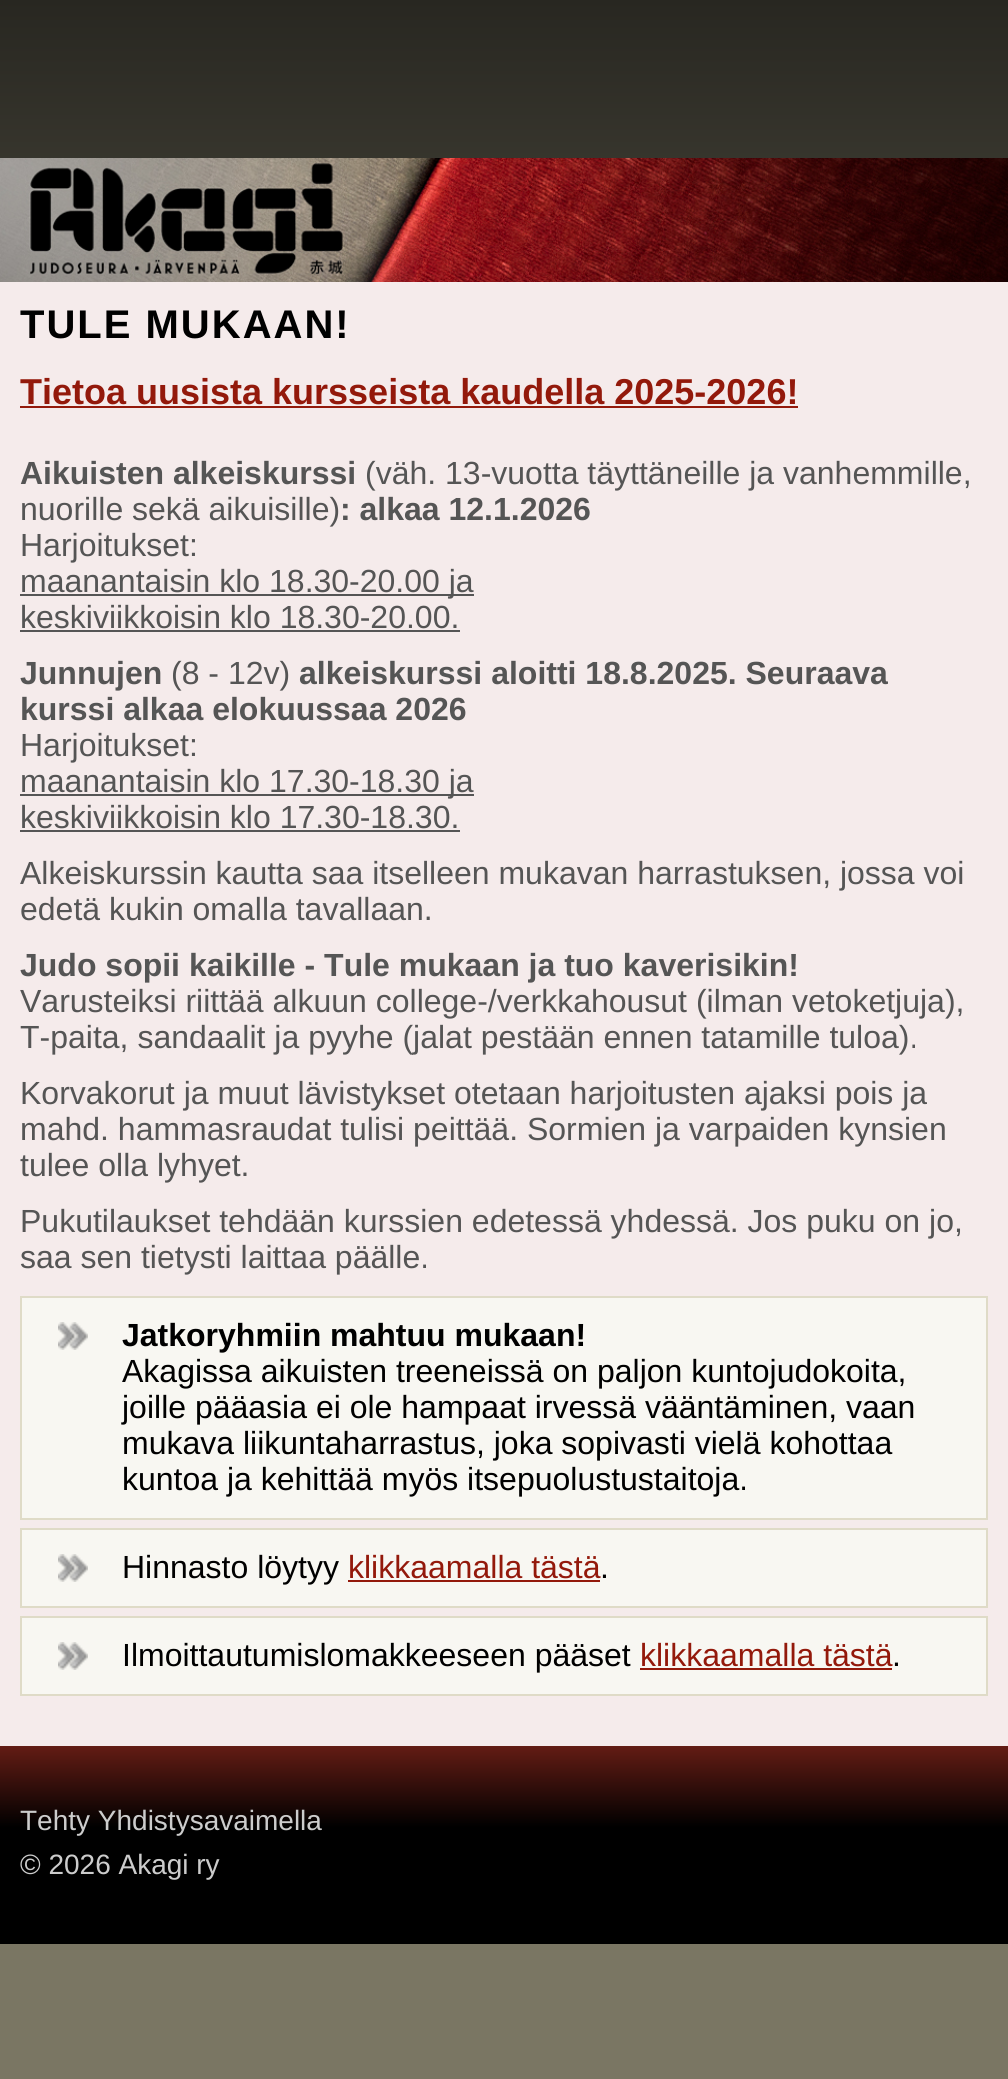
#include <cairo/cairo.h>
#include <math.h>
#include <stddef.h>


static void draw_spaced(cairo_t *cr, double x, double y, const char *s, double letter, double word) {
  cairo_move_to(cr, x, y);
  while (*s) {
    char ch[5] = {0};
    int n = 0;
    do ch[n++] = *s++; while ((*s & 0xC0) == 0x80);
    cairo_show_text(cr, ch);
    cairo_rel_move_to(cr, letter + word * (*ch == ' '), 0);
  }
}

static void draw_image(cairo_t *cr, const char *path, double x, double y, double w, double h) {
  cairo_surface_t *image = cairo_image_surface_create_from_png(path);
  cairo_save(cr);
  cairo_set_source_surface(cr, image, x, y);
  cairo_rectangle(cr, x, y, w, h);
  cairo_fill(cr);
  cairo_restore(cr);
  cairo_surface_destroy(image);
}

static void draw(cairo_t *cr) {
  cairo_pattern_t *gradient;
  cairo_set_source_rgb(cr, 1, 1, 1);
  cairo_paint(cr);
  gradient = cairo_pattern_create_linear(504, 0, 504, 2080);
  cairo_pattern_add_color_stop_rgba(gradient, 0, 40 / 255.0, 39 / 255.0, 33 / 255.0, 1);
  cairo_pattern_add_color_stop_rgba(gradient, 0.43, 122 / 255.0, 118 / 255.0, 99 / 255.0, 1);
  cairo_pattern_add_color_stop_rgba(gradient, 1, 122 / 255.0, 118 / 255.0, 99 / 255.0, 1);
  cairo_set_source(cr, gradient);
  cairo_pattern_destroy(gradient);
  cairo_rectangle(cr, 0, 0, 1008, 2079);
  cairo_fill(cr);
  draw_image(cr, "images/1.png", 0, 158, 1008, 124);
  cairo_set_source_rgb(cr, 245 / 255.0, 235 / 255.0, 235 / 255.0);
  cairo_rectangle(cr, 0, 282, 1008, 1464);
  cairo_fill(cr);
  cairo_set_source_rgb(cr, 147 / 255.0, 25 / 255.0, 11 / 255.0);
  cairo_rectangle(cr, 20, 406, 778, 2);
  cairo_fill(cr);
  cairo_set_source_rgb(cr, 85 / 255.0, 85 / 255.0, 85 / 255.0);
  cairo_rectangle(cr, 20, 594, 454, 2);
  cairo_fill(cr);
  cairo_rectangle(cr, 20, 630, 440, 2);
  cairo_fill(cr);
  cairo_rectangle(cr, 20, 794, 454, 2);
  cairo_fill(cr);
  cairo_rectangle(cr, 20, 830, 440, 2);
  cairo_fill(cr);
  cairo_set_source_rgb(cr, 248 / 255.0, 247 / 255.0, 242 / 255.0);
  cairo_rectangle(cr, 22, 1298, 964, 220);
  cairo_fill(cr);
  draw_image(cr, "images/2.png", 58, 1322, 30, 28);
  cairo_rectangle(cr, 21, 1297, 966, 222);
  cairo_set_source_rgb(cr, 223 / 255.0, 219 / 255.0, 199 / 255.0);
  cairo_stroke(cr);
  cairo_set_source_rgb(cr, 248 / 255.0, 247 / 255.0, 242 / 255.0);
  cairo_rectangle(cr, 22, 1530, 964, 76);
  cairo_fill(cr);
  draw_image(cr, "images/2.png", 58, 1554, 30, 28);
  cairo_rectangle(cr, 21, 1529, 966, 78);
  cairo_set_source_rgb(cr, 223 / 255.0, 219 / 255.0, 199 / 255.0);
  cairo_stroke(cr);
  cairo_set_source_rgb(cr, 147 / 255.0, 25 / 255.0, 11 / 255.0);
  cairo_rectangle(cr, 348, 1580, 252, 2);
  cairo_fill(cr);
  cairo_set_source_rgb(cr, 248 / 255.0, 247 / 255.0, 242 / 255.0);
  cairo_rectangle(cr, 22, 1618, 964, 76);
  cairo_fill(cr);
  draw_image(cr, "images/2.png", 58, 1642, 30, 28);
  cairo_rectangle(cr, 21, 1617, 966, 78);
  cairo_set_source_rgb(cr, 223 / 255.0, 219 / 255.0, 199 / 255.0);
  cairo_stroke(cr);
  cairo_set_source_rgb(cr, 147 / 255.0, 25 / 255.0, 11 / 255.0);
  cairo_rectangle(cr, 640, 1668, 252, 2);
  cairo_fill(cr);
  gradient = cairo_pattern_create_linear(504, 1746, 504, 1944);
  cairo_pattern_add_color_stop_rgba(gradient, 0, 99 / 255.0, 28 / 255.0, 20 / 255.0, 1);
  cairo_pattern_add_color_stop_rgba(gradient, 0.41, 0, 0, 0, 1);
  cairo_pattern_add_color_stop_rgba(gradient, 1, 0, 0, 0, 1);
  cairo_set_source(cr, gradient);
  cairo_pattern_destroy(gradient);
  cairo_rectangle(cr, 0, 1746, 1008, 198);
  cairo_fill(cr);
  cairo_select_font_face(cr, "Liberation Sans", CAIRO_FONT_SLANT_NORMAL, CAIRO_FONT_WEIGHT_BOLD);
  cairo_set_font_size(cr, 40);
  cairo_set_source_rgb(cr, 0, 0, 0);
  draw_spaced(cr, 20, 338, "TULE MUKAAN!", 2, 0);
  cairo_set_font_size(cr, 36);
  cairo_set_source_rgb(cr, 147 / 255.0, 25 / 255.0, 11 / 255.0);
  cairo_move_to(cr, 20, 404);
  cairo_show_text(cr, "Tietoa uusista kursseista kaudella 2025-2026!");
  cairo_set_font_size(cr, 32);
  cairo_set_source_rgb(cr, 85 / 255.0, 85 / 255.0, 85 / 255.0);
  cairo_move_to(cr, 20, 484);
  cairo_show_text(cr, "Aikuisten alkeiskurssi");
  cairo_select_font_face(cr, "Liberation Sans", CAIRO_FONT_SLANT_NORMAL, CAIRO_FONT_WEIGHT_NORMAL);
  cairo_move_to(cr, 365, 484);
  cairo_show_text(cr, "(väh. 13-vuotta täyttäneille ja vanhemmille,");
  cairo_move_to(cr, 20, 520);
  cairo_show_text(cr, "nuorille sekä aikuisille)");
  cairo_select_font_face(cr, "Liberation Sans", CAIRO_FONT_SLANT_NORMAL, CAIRO_FONT_WEIGHT_BOLD);
  cairo_move_to(cr, 340, 520);
  cairo_show_text(cr, ": alkaa 12.1.2026");
  cairo_select_font_face(cr, "Liberation Sans", CAIRO_FONT_SLANT_NORMAL, CAIRO_FONT_WEIGHT_NORMAL);
  cairo_move_to(cr, 20, 556);
  cairo_show_text(cr, "Harjoitukset:");
  cairo_move_to(cr, 20, 592);
  cairo_show_text(cr, "maanantaisin klo 18.30-20.00 ja");
  cairo_move_to(cr, 20, 628);
  cairo_show_text(cr, "keskiviikkoisin klo 18.30-20.00.");
  cairo_select_font_face(cr, "Liberation Sans", CAIRO_FONT_SLANT_NORMAL, CAIRO_FONT_WEIGHT_BOLD);
  cairo_move_to(cr, 20, 684);
  cairo_show_text(cr, "Junnujen");
  cairo_select_font_face(cr, "Liberation Sans", CAIRO_FONT_SLANT_NORMAL, CAIRO_FONT_WEIGHT_NORMAL);
  cairo_move_to(cr, 171, 684);
  cairo_show_text(cr, "(8 - 12v)");
  cairo_select_font_face(cr, "Liberation Sans", CAIRO_FONT_SLANT_NORMAL, CAIRO_FONT_WEIGHT_BOLD);
  cairo_move_to(cr, 299, 684);
  cairo_show_text(cr, "alkeiskurssi aloitti 18.8.2025. Seuraava");
  cairo_move_to(cr, 20, 720);
  cairo_show_text(cr, "kurssi alkaa elokuussaa 2026");
  cairo_select_font_face(cr, "Liberation Sans", CAIRO_FONT_SLANT_NORMAL, CAIRO_FONT_WEIGHT_NORMAL);
  cairo_move_to(cr, 20, 756);
  cairo_show_text(cr, "Harjoitukset:");
  cairo_move_to(cr, 20, 792);
  cairo_show_text(cr, "maanantaisin klo 17.30-18.30 ja");
  cairo_move_to(cr, 20, 828);
  cairo_show_text(cr, "keskiviikkoisin klo 17.30-18.30.");
  cairo_move_to(cr, 20, 884);
  cairo_show_text(cr, "Alkeiskurssin kautta saa itselleen mukavan harrastuksen, jossa voi");
  cairo_move_to(cr, 20, 920);
  cairo_show_text(cr, "edetä kukin omalla tavallaan.");
  cairo_select_font_face(cr, "Liberation Sans", CAIRO_FONT_SLANT_NORMAL, CAIRO_FONT_WEIGHT_BOLD);
  cairo_move_to(cr, 20, 976);
  cairo_show_text(cr, "Judo sopii kaikille - Tule mukaan ja tuo kaverisikin!");
  cairo_select_font_face(cr, "Liberation Sans", CAIRO_FONT_SLANT_NORMAL, CAIRO_FONT_WEIGHT_NORMAL);
  cairo_move_to(cr, 20, 1012);
  cairo_show_text(cr, "Varusteiksi riittää alkuun college-/verkkahousut (ilman vetoketjuja),");
  cairo_move_to(cr, 20, 1048);
  cairo_show_text(cr, "T-paita, sandaalit ja pyyhe (jalat pestään ennen tatamille tuloa).");
  cairo_move_to(cr, 20, 1104);
  cairo_show_text(cr, "Korvakorut ja muut lävistykset otetaan harjoitusten ajaksi pois ja");
  cairo_move_to(cr, 20, 1140);
  cairo_show_text(cr, "mahd. hammasraudat tulisi peittää. Sormien ja varpaiden kynsien");
  cairo_move_to(cr, 20, 1176);
  cairo_show_text(cr, "tulee olla lyhyet.");
  cairo_move_to(cr, 20, 1232);
  cairo_show_text(cr, "Pukutilaukset tehdään kurssien edetessä yhdessä. Jos puku on jo,");
  cairo_move_to(cr, 20, 1268);
  cairo_show_text(cr, "saa sen tietysti laittaa päälle.");
  cairo_select_font_face(cr, "Liberation Sans", CAIRO_FONT_SLANT_NORMAL, CAIRO_FONT_WEIGHT_BOLD);
  cairo_set_source_rgb(cr, 0, 0, 0);
  cairo_move_to(cr, 122, 1346);
  cairo_show_text(cr, "Jatkoryhmiin mahtuu mukaan!");
  cairo_select_font_face(cr, "Liberation Sans", CAIRO_FONT_SLANT_NORMAL, CAIRO_FONT_WEIGHT_NORMAL);
  cairo_move_to(cr, 122, 1382);
  cairo_show_text(cr, "Akagissa aikuisten treeneissä on paljon kuntojudokoita,");
  cairo_move_to(cr, 122, 1418);
  cairo_show_text(cr, "joille pääasia ei ole hampaat irvessä vääntäminen, vaan");
  cairo_move_to(cr, 122, 1454);
  cairo_show_text(cr, "mukava liikuntaharrastus, joka sopivasti vielä kohottaa");
  cairo_move_to(cr, 122, 1490);
  cairo_show_text(cr, "kuntoa ja kehittää myös itsepuolustustaitoja.");
  cairo_move_to(cr, 122, 1578);
  cairo_show_text(cr, "Hinnasto löytyy");
  cairo_set_source_rgb(cr, 147 / 255.0, 25 / 255.0, 11 / 255.0);
  cairo_move_to(cr, 348, 1578);
  cairo_show_text(cr, "klikkaamalla tästä");
  cairo_set_source_rgb(cr, 0, 0, 0);
  cairo_move_to(cr, 600, 1578);
  cairo_show_text(cr, ".");
  cairo_move_to(cr, 122, 1666);
  cairo_show_text(cr, "Ilmoittautumislomakkeeseen pääset");
  cairo_set_source_rgb(cr, 147 / 255.0, 25 / 255.0, 11 / 255.0);
  cairo_move_to(cr, 640, 1666);
  cairo_show_text(cr, "klikkaamalla tästä");
  cairo_set_source_rgb(cr, 0, 0, 0);
  cairo_move_to(cr, 892, 1666);
  cairo_show_text(cr, ".");
  cairo_set_font_size(cr, 28);
  cairo_set_source_rgb(cr, 204 / 255.0, 204 / 255.0, 204 / 255.0);
  cairo_move_to(cr, 20, 1830);
  cairo_show_text(cr, "Tehty Yhdistysavaimella");
  cairo_move_to(cr, 20, 1874);
  cairo_show_text(cr, "© 2026 Akagi ry");
}

int main(void) {
  cairo_surface_t *surface = cairo_image_surface_create(CAIRO_FORMAT_RGB24, 1008, 2079);
  cairo_t *cr = cairo_create(surface);
  cairo_font_options_t *options = cairo_font_options_create();
  cairo_font_options_set_hint_metrics(options, CAIRO_HINT_METRICS_OFF);
  cairo_font_options_set_hint_style(options, CAIRO_HINT_STYLE_NONE);
  cairo_set_font_options(cr, options);
  cairo_set_miter_limit(cr, 4);
  draw(cr);
  cairo_surface_write_to_png(surface, "out.png");
  cairo_font_options_destroy(options);
  cairo_destroy(cr);
  cairo_surface_destroy(surface);
  return 0;
}
